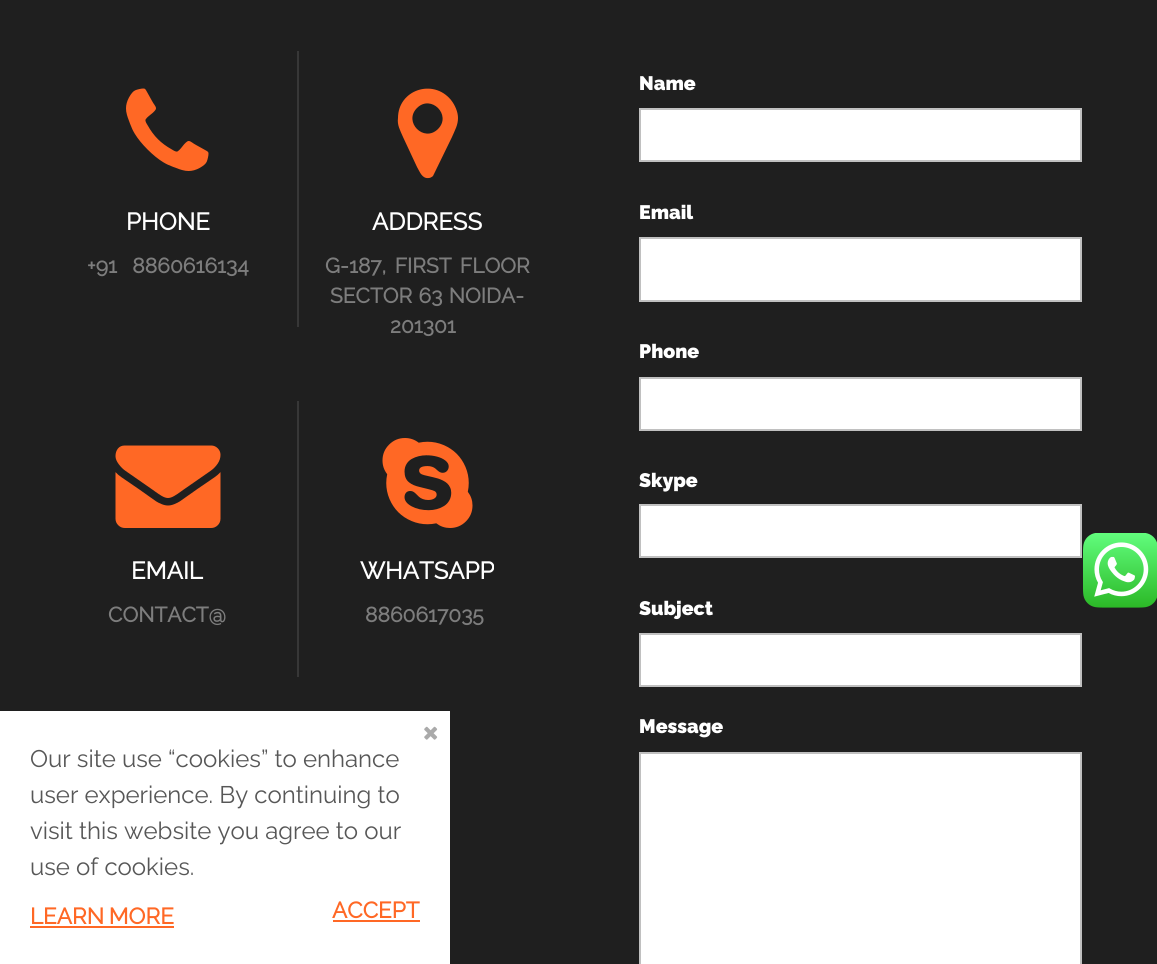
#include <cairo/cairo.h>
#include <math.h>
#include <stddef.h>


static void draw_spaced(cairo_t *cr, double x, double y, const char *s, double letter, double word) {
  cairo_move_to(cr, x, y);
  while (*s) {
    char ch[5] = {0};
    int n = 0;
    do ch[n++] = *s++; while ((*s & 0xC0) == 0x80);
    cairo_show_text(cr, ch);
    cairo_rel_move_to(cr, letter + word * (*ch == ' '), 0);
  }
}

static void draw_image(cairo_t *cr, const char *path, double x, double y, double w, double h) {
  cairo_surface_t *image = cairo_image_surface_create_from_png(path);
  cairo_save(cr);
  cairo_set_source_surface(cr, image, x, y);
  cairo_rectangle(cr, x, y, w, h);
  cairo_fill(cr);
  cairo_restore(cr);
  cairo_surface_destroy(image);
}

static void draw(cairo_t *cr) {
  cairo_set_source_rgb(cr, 31 / 255.0, 31 / 255.0, 31 / 255.0);
  cairo_paint(cr);
  cairo_set_source_rgb(cr, 55 / 255.0, 55 / 255.0, 55 / 255.0);
  cairo_rectangle(cr, 297, 51, 2, 276);
  cairo_fill(cr);
  draw_image(cr, "images/1.png", 126, 88, 83, 83);
  cairo_set_source_rgb(cr, 1, 104 / 255.0, 37 / 255.0);
  cairo_new_path(cr);
  cairo_move_to(cr, 438, 129);
  cairo_curve_to(cr, 452, 115, 431, 94, 417, 108);
  cairo_curve_to(cr, 403, 122, 424, 143, 438, 129);
  cairo_close_path(cr);
  cairo_move_to(cr, 458, 118);
  cairo_curve_to(cr, 458, 125, 455, 130, 452, 137);
  cairo_line_to(cr, 433, 176);
  cairo_curve_to(cr, 432, 177, 430, 178, 429, 178);
  cairo_curve_to(cr, 422, 179, 420, 172, 417, 167);
  cairo_line_to(cr, 403, 137);
  cairo_curve_to(cr, 400, 130, 397, 125, 398, 118);
  cairo_curve_to(cr, 398, 90, 433, 78, 451, 100);
  cairo_curve_to(cr, 455, 105, 458, 112, 458, 118);
  cairo_close_path(cr);
  cairo_fill(cr);
  cairo_set_source_rgb(cr, 55 / 255.0, 55 / 255.0, 55 / 255.0);
  cairo_rectangle(cr, 297, 401, 2, 276);
  cairo_fill(cr);
  draw_image(cr, "images/2.png", 115, 445, 106, 83);
  draw_image(cr, "images/3.png", 382, 438, 91, 90);
  cairo_set_source_rgb(cr, 1, 1, 1);
  cairo_rectangle(cr, 640, 109, 441, 52);
  cairo_fill_preserve(cr);
  cairo_set_source_rgb(cr, 192 / 255.0, 192 / 255.0, 192 / 255.0);
  cairo_stroke(cr);
  cairo_set_source_rgb(cr, 1, 1, 1);
  cairo_rectangle(cr, 640, 238, 441, 63);
  cairo_fill_preserve(cr);
  cairo_set_source_rgb(cr, 192 / 255.0, 192 / 255.0, 192 / 255.0);
  cairo_stroke(cr);
  cairo_set_source_rgb(cr, 1, 1, 1);
  cairo_rectangle(cr, 640, 378, 441, 52);
  cairo_fill_preserve(cr);
  cairo_set_source_rgb(cr, 192 / 255.0, 192 / 255.0, 192 / 255.0);
  cairo_stroke(cr);
  cairo_set_source_rgb(cr, 1, 1, 1);
  cairo_rectangle(cr, 640, 505, 441, 52);
  cairo_fill_preserve(cr);
  cairo_set_source_rgb(cr, 192 / 255.0, 192 / 255.0, 192 / 255.0);
  cairo_stroke(cr);
  cairo_set_source_rgb(cr, 1, 1, 1);
  cairo_rectangle(cr, 640, 634, 441, 52);
  cairo_fill_preserve(cr);
  cairo_set_source_rgb(cr, 192 / 255.0, 192 / 255.0, 192 / 255.0);
  cairo_stroke(cr);
  cairo_set_source_rgb(cr, 1, 1, 1);
  cairo_rectangle(cr, 640, 753, 441, 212);
  cairo_fill_preserve(cr);
  cairo_set_source_rgb(cr, 192 / 255.0, 192 / 255.0, 192 / 255.0);
  cairo_stroke(cr);
  draw_image(cr, "images/4.png", 1083, 533, 74, 75);
  cairo_set_source_rgb(cr, 1, 1, 1);
  cairo_rectangle(cr, 0, 711, 450, 253);
  cairo_fill(cr);
  draw_image(cr, "images/5.png", 424, 726, 14, 14);
  cairo_set_source_rgb(cr, 1, 104 / 255.0, 37 / 255.0);
  cairo_rectangle(cr, 30, 926, 144, 2);
  cairo_fill(cr);
  cairo_rectangle(cr, 333, 920, 87, 2);
  cairo_fill(cr);
  cairo_select_font_face(cr, "Raleway", CAIRO_FONT_SLANT_NORMAL, CAIRO_FONT_WEIGHT_BOLD);
  cairo_set_font_size(cr, 24);
  cairo_set_source_rgb(cr, 1, 1, 1);
  cairo_move_to(cr, 126, 230);
  cairo_show_text(cr, "PHONE");
  cairo_set_font_size(cr, 21);
  cairo_set_source_rgb(cr, 125 / 255.0, 125 / 255.0, 125 / 255.0);
  draw_spaced(cr, 87, 273, "+91 8860616134", 0, 10);
  cairo_set_font_size(cr, 24);
  cairo_set_source_rgb(cr, 1, 1, 1);
  cairo_move_to(cr, 372, 230);
  cairo_show_text(cr, "ADDRESS");
  cairo_set_font_size(cr, 21);
  cairo_set_source_rgb(cr, 125 / 255.0, 125 / 255.0, 125 / 255.0);
  draw_spaced(cr, 325, 273, "G-187, FIRST FLOOR", 0, 3);
  draw_spaced(cr, 330, 303, "SECTOR 63 NOIDA-", 0, 1);
  cairo_move_to(cr, 390, 333);
  cairo_show_text(cr, "201301");
  cairo_set_font_size(cr, 24);
  cairo_set_source_rgb(cr, 1, 1, 1);
  cairo_move_to(cr, 131, 579);
  cairo_show_text(cr, "EMAIL");
  cairo_set_font_size(cr, 21);
  cairo_set_source_rgb(cr, 125 / 255.0, 125 / 255.0, 125 / 255.0);
  cairo_move_to(cr, 108, 622);
  cairo_show_text(cr, "CONTACT@");
  cairo_set_font_size(cr, 24);
  cairo_set_source_rgb(cr, 1, 1, 1);
  cairo_move_to(cr, 360, 579);
  cairo_show_text(cr, "WHATSAPP");
  cairo_set_font_size(cr, 21);
  cairo_set_source_rgb(cr, 125 / 255.0, 125 / 255.0, 125 / 255.0);
  cairo_move_to(cr, 365, 622);
  cairo_show_text(cr, "8860617035");
  cairo_select_font_face(cr, "Raleway Black", CAIRO_FONT_SLANT_NORMAL, CAIRO_FONT_WEIGHT_NORMAL);
  cairo_set_font_size(cr, 19.5);
  cairo_set_source_rgb(cr, 1, 1, 1);
  cairo_move_to(cr, 639, 90);
  cairo_show_text(cr, "Name");
  cairo_move_to(cr, 639, 219);
  cairo_show_text(cr, "Email");
  cairo_move_to(cr, 639, 358);
  cairo_show_text(cr, "Phone");
  cairo_move_to(cr, 639, 487);
  cairo_show_text(cr, "Skype");
  cairo_move_to(cr, 639, 615);
  cairo_show_text(cr, "Subject");
  cairo_move_to(cr, 639, 733);
  cairo_show_text(cr, "Message");
  cairo_select_font_face(cr, "Raleway", CAIRO_FONT_SLANT_NORMAL, CAIRO_FONT_WEIGHT_NORMAL);
  cairo_set_font_size(cr, 24);
  cairo_set_source_rgb(cr, 87 / 255.0, 87 / 255.0, 87 / 255.0);
  cairo_move_to(cr, 30, 767);
  cairo_show_text(cr, "Our site use “cookies” to enhance");
  cairo_move_to(cr, 30, 803);
  cairo_show_text(cr, "user experience. By continuing to");
  cairo_move_to(cr, 30, 839);
  cairo_show_text(cr, "visit this website you agree to our");
  cairo_move_to(cr, 30, 875);
  cairo_show_text(cr, "use of cookies.");
  cairo_select_font_face(cr, "Raleway", CAIRO_FONT_SLANT_NORMAL, CAIRO_FONT_WEIGHT_BOLD);
  cairo_set_font_size(cr, 22.5);
  cairo_set_source_rgb(cr, 1, 104 / 255.0, 37 / 255.0);
  draw_spaced(cr, 30, 924, "LEARN MORE", 0, -1);
  cairo_move_to(cr, 332, 918);
  cairo_show_text(cr, "ACCEPT");
}

int main(void) {
  cairo_surface_t *surface = cairo_image_surface_create(CAIRO_FORMAT_RGB24, 1157, 964);
  cairo_t *cr = cairo_create(surface);
  cairo_font_options_t *options = cairo_font_options_create();
  cairo_font_options_set_hint_metrics(options, CAIRO_HINT_METRICS_OFF);
  cairo_font_options_set_hint_style(options, CAIRO_HINT_STYLE_NONE);
  cairo_set_font_options(cr, options);
  cairo_set_miter_limit(cr, 4);
  draw(cr);
  cairo_surface_write_to_png(surface, "out.png");
  cairo_font_options_destroy(options);
  cairo_destroy(cr);
  cairo_surface_destroy(surface);
  return 0;
}
